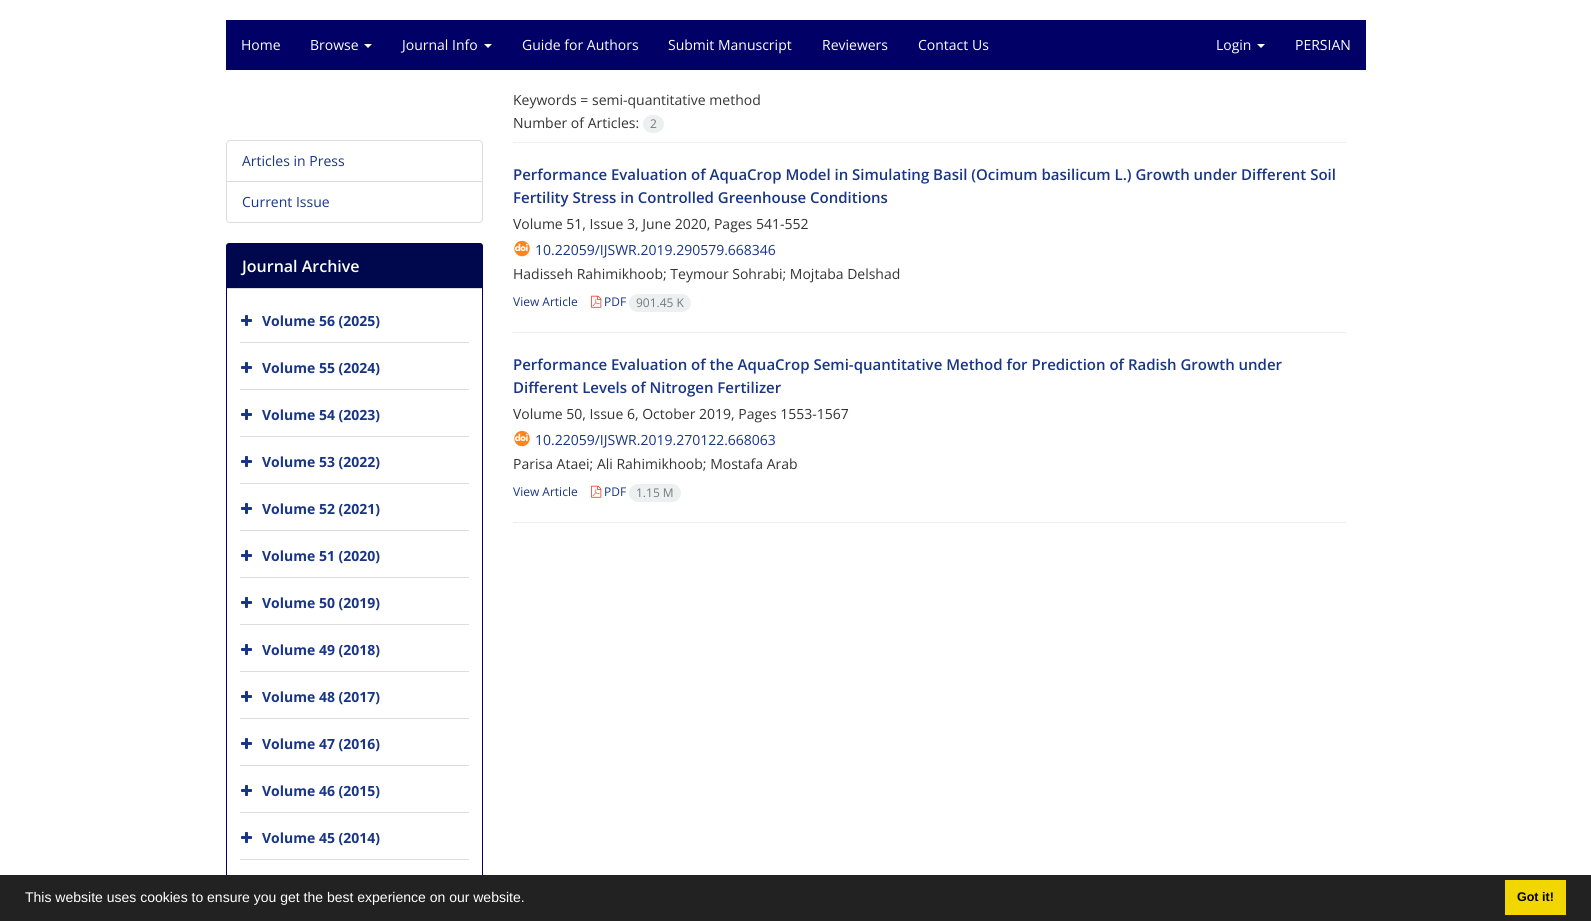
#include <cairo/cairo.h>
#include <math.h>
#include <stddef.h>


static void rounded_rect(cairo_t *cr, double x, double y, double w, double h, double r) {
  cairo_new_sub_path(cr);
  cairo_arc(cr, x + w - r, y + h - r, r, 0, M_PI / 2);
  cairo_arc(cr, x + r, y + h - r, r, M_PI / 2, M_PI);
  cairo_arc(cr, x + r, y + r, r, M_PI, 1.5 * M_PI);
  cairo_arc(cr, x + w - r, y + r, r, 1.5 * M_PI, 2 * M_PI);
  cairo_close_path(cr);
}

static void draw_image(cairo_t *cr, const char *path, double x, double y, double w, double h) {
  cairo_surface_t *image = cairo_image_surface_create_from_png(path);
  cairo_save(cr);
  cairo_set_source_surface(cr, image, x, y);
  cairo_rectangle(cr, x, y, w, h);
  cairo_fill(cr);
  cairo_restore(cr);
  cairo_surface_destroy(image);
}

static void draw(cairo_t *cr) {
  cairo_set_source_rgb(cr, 1, 1, 1);
  cairo_paint(cr);
  cairo_set_source_rgb(cr, 0, 0, 102 / 255.0);
  cairo_rectangle(cr, 226, 20, 1140, 50);
  cairo_fill(cr);
  cairo_set_source_rgb(cr, 1, 1, 1);
  cairo_new_path(cr);
  cairo_move_to(cr, 364, 44);
  cairo_line_to(cr, 372, 44);
  cairo_line_to(cr, 368, 48);
  cairo_close_path(cr);
  cairo_fill(cr);
  cairo_new_path(cr);
  cairo_move_to(cr, 484, 44);
  cairo_line_to(cr, 492, 44);
  cairo_line_to(cr, 488, 48);
  cairo_close_path(cr);
  cairo_fill(cr);
  cairo_new_path(cr);
  cairo_move_to(cr, 1257, 44);
  cairo_line_to(cr, 1265, 44);
  cairo_line_to(cr, 1261, 48);
  cairo_close_path(cr);
  cairo_fill(cr);
  cairo_new_path(cr);
  cairo_move_to(cr, 230, 140.5);
  cairo_line_to(cr, 479, 140.5);
  cairo_curve_to(cr, 481, 140.5, 482.5, 142, 482.5, 144);
  cairo_line_to(cr, 482.5, 181.5);
  cairo_line_to(cr, 226.5, 181.5);
  cairo_line_to(cr, 226.5, 144);
  cairo_curve_to(cr, 226.5, 142, 228, 140.5, 230, 140.5);
  cairo_close_path(cr);
  cairo_set_source_rgb(cr, 221 / 255.0, 221 / 255.0, 221 / 255.0);
  cairo_set_line_width(cr, 1);
  cairo_stroke(cr);
  cairo_set_source_rgb(cr, 1, 1, 1);
  cairo_new_path(cr);
  cairo_move_to(cr, 226.5, 181.5);
  cairo_line_to(cr, 482.5, 181.5);
  cairo_line_to(cr, 482.5, 219);
  cairo_curve_to(cr, 482.5, 221, 481, 222.5, 479, 222.5);
  cairo_line_to(cr, 230, 222.5);
  cairo_curve_to(cr, 228, 222.5, 226.5, 221, 226.5, 219);
  cairo_close_path(cr);
  cairo_fill_preserve(cr);
  cairo_set_source_rgb(cr, 221 / 255.0, 221 / 255.0, 221 / 255.0);
  cairo_stroke(cr);
  rounded_rect(cr, 226.5, 243.5, 256, 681, 2.5);
  cairo_set_source_rgb(cr, 0, 0, 102 / 255.0);
  cairo_stroke(cr);
  cairo_set_source_rgb(cr, 0, 8 / 255.0, 77 / 255.0);
  cairo_rectangle(cr, 227, 244, 255, 44);
  cairo_fill(cr);
  cairo_set_source_rgb(cr, 221 / 255.0, 221 / 255.0, 221 / 255.0);
  cairo_rectangle(cr, 227, 288, 255, 1);
  cairo_fill(cr);
  cairo_rectangle(cr, 240, 342, 229, 1);
  cairo_fill(cr);
  draw_image(cr, "images/1.png", 241, 315, 11, 11);
  cairo_rectangle(cr, 240, 389, 229, 1);
  cairo_fill(cr);
  draw_image(cr, "images/1.png", 241, 362, 11, 11);
  cairo_rectangle(cr, 240, 436, 229, 1);
  cairo_fill(cr);
  draw_image(cr, "images/1.png", 241, 409, 11, 11);
  cairo_rectangle(cr, 240, 483, 229, 1);
  cairo_fill(cr);
  draw_image(cr, "images/1.png", 241, 456, 11, 11);
  cairo_rectangle(cr, 240, 530, 229, 1);
  cairo_fill(cr);
  draw_image(cr, "images/1.png", 241, 503, 11, 11);
  cairo_rectangle(cr, 240, 577, 229, 1);
  cairo_fill(cr);
  draw_image(cr, "images/1.png", 241, 550, 11, 11);
  cairo_rectangle(cr, 240, 624, 229, 1);
  cairo_fill(cr);
  draw_image(cr, "images/1.png", 241, 597, 11, 11);
  cairo_rectangle(cr, 240, 671, 229, 1);
  cairo_fill(cr);
  draw_image(cr, "images/1.png", 241, 644, 11, 11);
  cairo_rectangle(cr, 240, 718, 229, 1);
  cairo_fill(cr);
  draw_image(cr, "images/1.png", 241, 691, 11, 11);
  cairo_rectangle(cr, 240, 765, 229, 1);
  cairo_fill(cr);
  draw_image(cr, "images/1.png", 241, 738, 11, 11);
  cairo_rectangle(cr, 240, 812, 229, 1);
  cairo_fill(cr);
  draw_image(cr, "images/1.png", 241, 785, 11, 11);
  cairo_rectangle(cr, 240, 859, 229, 1);
  cairo_fill(cr);
  draw_image(cr, "images/1.png", 241, 832, 11, 11);
  cairo_set_source_rgb(cr, 238 / 255.0, 238 / 255.0, 238 / 255.0);
  cairo_rectangle(cr, 513, 142, 833, 1);
  cairo_fill(cr);
  cairo_set_source_rgb(cr, 236 / 255.0, 240 / 255.0, 241 / 255.0);
  rounded_rect(cr, 643, 115, 21, 18, 9);
  cairo_fill(cr);
  draw_image(cr, "images/2.png", 514, 240, 16, 17);
  draw_image(cr, "images/3.png", 591, 295, 11, 13);
  rounded_rect(cr, 629, 294, 62, 18, 9);
  cairo_fill(cr);
  cairo_set_source_rgb(cr, 238 / 255.0, 238 / 255.0, 238 / 255.0);
  cairo_rectangle(cr, 513, 332, 833, 1);
  cairo_fill(cr);
  draw_image(cr, "images/2.png", 514, 430, 16, 17);
  draw_image(cr, "images/3.png", 591, 485, 11, 13);
  cairo_set_source_rgb(cr, 236 / 255.0, 240 / 255.0, 241 / 255.0);
  rounded_rect(cr, 629, 484, 52, 18, 9);
  cairo_fill(cr);
  cairo_set_source_rgb(cr, 238 / 255.0, 238 / 255.0, 238 / 255.0);
  cairo_rectangle(cr, 513, 522, 833, 1);
  cairo_fill(cr);
  cairo_set_source_rgb(cr, 34 / 255.0, 34 / 255.0, 34 / 255.0);
  cairo_rectangle(cr, 0, 875, 1591, 46);
  cairo_fill(cr);
  cairo_set_source_rgb(cr, 241 / 255.0, 214 / 255.0, 0);
  cairo_rectangle(cr, 1505, 880, 61, 35);
  cairo_fill(cr);
  cairo_select_font_face(cr, "Open Sans", CAIRO_FONT_SLANT_NORMAL, CAIRO_FONT_WEIGHT_NORMAL);
  cairo_set_font_size(cr, 14);
  cairo_set_source_rgb(cr, 1, 1, 1);
  cairo_move_to(cr, 241, 50);
  cairo_show_text(cr, "Home");
  cairo_move_to(cr, 310, 50);
  cairo_show_text(cr, "Browse");
  cairo_move_to(cr, 402, 50);
  cairo_show_text(cr, "Journal Info");
  cairo_move_to(cr, 522, 50);
  cairo_show_text(cr, "Guide for Authors");
  cairo_move_to(cr, 668, 50);
  cairo_show_text(cr, "Submit Manuscript");
  cairo_move_to(cr, 822, 50);
  cairo_show_text(cr, "Reviewers");
  cairo_move_to(cr, 918, 50);
  cairo_show_text(cr, "Contact Us");
  cairo_move_to(cr, 1216, 50);
  cairo_show_text(cr, "Login");
  cairo_move_to(cr, 1295, 50);
  cairo_show_text(cr, "PERSIAN");
  cairo_set_source_rgb(cr, 24 / 255.0, 53 / 255.0, 134 / 255.0);
  cairo_move_to(cr, 242, 166);
  cairo_show_text(cr, "Articles in Press");
  cairo_move_to(cr, 242, 207);
  cairo_show_text(cr, "Current Issue");
  cairo_select_font_face(cr, "Open Sans SemiBold", CAIRO_FONT_SLANT_NORMAL, CAIRO_FONT_WEIGHT_NORMAL);
  cairo_set_font_size(cr, 16);
  cairo_set_source_rgb(cr, 1, 1, 1);
  cairo_move_to(cr, 242, 272);
  cairo_show_text(cr, "Journal Archive");
  cairo_select_font_face(cr, "Open Sans", CAIRO_FONT_SLANT_NORMAL, CAIRO_FONT_WEIGHT_BOLD);
  cairo_set_font_size(cr, 14);
  cairo_set_source_rgb(cr, 24 / 255.0, 53 / 255.0, 134 / 255.0);
  cairo_move_to(cr, 262, 326);
  cairo_show_text(cr, "Volume 56 (2025)");
  cairo_move_to(cr, 262, 373);
  cairo_show_text(cr, "Volume 55 (2024)");
  cairo_move_to(cr, 262, 420);
  cairo_show_text(cr, "Volume 54 (2023)");
  cairo_move_to(cr, 262, 467);
  cairo_show_text(cr, "Volume 53 (2022)");
  cairo_move_to(cr, 262, 514);
  cairo_show_text(cr, "Volume 52 (2021)");
  cairo_move_to(cr, 262, 561);
  cairo_show_text(cr, "Volume 51 (2020)");
  cairo_move_to(cr, 262, 608);
  cairo_show_text(cr, "Volume 50 (2019)");
  cairo_move_to(cr, 262, 655);
  cairo_show_text(cr, "Volume 49 (2018)");
  cairo_move_to(cr, 262, 702);
  cairo_show_text(cr, "Volume 48 (2017)");
  cairo_move_to(cr, 262, 749);
  cairo_show_text(cr, "Volume 47 (2016)");
  cairo_move_to(cr, 262, 796);
  cairo_show_text(cr, "Volume 46 (2015)");
  cairo_move_to(cr, 262, 843);
  cairo_show_text(cr, "Volume 45 (2014)");
  cairo_select_font_face(cr, "Open Sans", CAIRO_FONT_SLANT_NORMAL, CAIRO_FONT_WEIGHT_NORMAL);
  cairo_set_source_rgb(cr, 51 / 255.0, 51 / 255.0, 51 / 255.0);
  cairo_move_to(cr, 513, 105);
  cairo_show_text(cr, "Keywords = semi-quantitative method");
  cairo_move_to(cr, 513, 128);
  cairo_show_text(cr, "Number of Articles:");
  cairo_set_font_size(cr, 12);
  cairo_set_source_rgb(cr, 119 / 255.0, 119 / 255.0, 119 / 255.0);
  cairo_move_to(cr, 650, 128);
  cairo_show_text(cr, "2");
  cairo_select_font_face(cr, "Open Sans SemiBold", CAIRO_FONT_SLANT_NORMAL, CAIRO_FONT_WEIGHT_NORMAL);
  cairo_set_font_size(cr, 15);
  cairo_set_source_rgb(cr, 24 / 255.0, 53 / 255.0, 134 / 255.0);
  cairo_move_to(cr, 513, 180);
  cairo_show_text(cr, "Performance Evaluation of AquaCrop Model in Simulating Basil (Ocimum basilicum L.) Growth under Different Soil");
  cairo_move_to(cr, 513, 203);
  cairo_show_text(cr, "Fertility Stress in Controlled Greenhouse Conditions");
  cairo_select_font_face(cr, "Open Sans", CAIRO_FONT_SLANT_NORMAL, CAIRO_FONT_WEIGHT_NORMAL);
  cairo_set_font_size(cr, 14);
  cairo_set_source_rgb(cr, 51 / 255.0, 51 / 255.0, 51 / 255.0);
  cairo_move_to(cr, 513, 229);
  cairo_show_text(cr, "Volume 51, Issue 3, June 2020, Pages 541-552");
  cairo_set_source_rgb(cr, 24 / 255.0, 53 / 255.0, 134 / 255.0);
  cairo_move_to(cr, 535, 255);
  cairo_show_text(cr, "10.22059/IJSWR.2019.290579.668346");
  cairo_set_source_rgb(cr, 51 / 255.0, 51 / 255.0, 51 / 255.0);
  cairo_move_to(cr, 513, 279);
  cairo_show_text(cr, "Hadisseh Rahimikhoob; Teymour Sohrabi; Mojtaba Delshad");
  cairo_set_font_size(cr, 12);
  cairo_set_source_rgb(cr, 24 / 255.0, 53 / 255.0, 134 / 255.0);
  cairo_move_to(cr, 513, 306);
  cairo_show_text(cr, "View Article");
  cairo_move_to(cr, 604, 306);
  cairo_show_text(cr, "PDF");
  cairo_set_source_rgb(cr, 119 / 255.0, 119 / 255.0, 119 / 255.0);
  cairo_move_to(cr, 636, 307);
  cairo_show_text(cr, "901.45 K");
  cairo_select_font_face(cr, "Open Sans SemiBold", CAIRO_FONT_SLANT_NORMAL, CAIRO_FONT_WEIGHT_NORMAL);
  cairo_set_font_size(cr, 15);
  cairo_set_source_rgb(cr, 24 / 255.0, 53 / 255.0, 134 / 255.0);
  cairo_move_to(cr, 513, 370);
  cairo_show_text(cr, "Performance Evaluation of the AquaCrop Semi-quantitative Method for Prediction of Radish Growth under");
  cairo_move_to(cr, 513, 393);
  cairo_show_text(cr, "Different Levels of Nitrogen Fertilizer");
  cairo_select_font_face(cr, "Open Sans", CAIRO_FONT_SLANT_NORMAL, CAIRO_FONT_WEIGHT_NORMAL);
  cairo_set_font_size(cr, 14);
  cairo_set_source_rgb(cr, 51 / 255.0, 51 / 255.0, 51 / 255.0);
  cairo_move_to(cr, 513, 419);
  cairo_show_text(cr, "Volume 50, Issue 6, October 2019, Pages 1553-1567");
  cairo_set_source_rgb(cr, 24 / 255.0, 53 / 255.0, 134 / 255.0);
  cairo_move_to(cr, 535, 445);
  cairo_show_text(cr, "10.22059/IJSWR.2019.270122.668063");
  cairo_set_source_rgb(cr, 51 / 255.0, 51 / 255.0, 51 / 255.0);
  cairo_move_to(cr, 513, 469);
  cairo_show_text(cr, "Parisa Ataei; Ali Rahimikhoob; Mostafa Arab");
  cairo_set_font_size(cr, 12);
  cairo_set_source_rgb(cr, 24 / 255.0, 53 / 255.0, 134 / 255.0);
  cairo_move_to(cr, 513, 496);
  cairo_show_text(cr, "View Article");
  cairo_move_to(cr, 604, 496);
  cairo_show_text(cr, "PDF");
  cairo_set_source_rgb(cr, 119 / 255.0, 119 / 255.0, 119 / 255.0);
  cairo_move_to(cr, 636, 497);
  cairo_show_text(cr, "1.15 M");
  cairo_select_font_face(cr, "Liberation Sans", CAIRO_FONT_SLANT_NORMAL, CAIRO_FONT_WEIGHT_NORMAL);
  cairo_set_font_size(cr, 14);
  cairo_set_source_rgb(cr, 1, 1, 1);
  cairo_move_to(cr, 25, 902);
  cairo_show_text(cr, "This website uses cookies to ensure you get the best experience on our website.");
  cairo_select_font_face(cr, "Liberation Sans", CAIRO_FONT_SLANT_NORMAL, CAIRO_FONT_WEIGHT_BOLD);
  cairo_set_font_size(cr, 12.5);
  cairo_set_source_rgb(cr, 0, 0, 0);
  cairo_move_to(cr, 1517, 901);
  cairo_show_text(cr, "Got it!");
}

int main(void) {
  cairo_surface_t *surface = cairo_image_surface_create(CAIRO_FORMAT_RGB24, 1591, 921);
  cairo_t *cr = cairo_create(surface);
  cairo_font_options_t *options = cairo_font_options_create();
  cairo_font_options_set_hint_metrics(options, CAIRO_HINT_METRICS_OFF);
  cairo_font_options_set_hint_style(options, CAIRO_HINT_STYLE_NONE);
  cairo_set_font_options(cr, options);
  cairo_set_miter_limit(cr, 4);
  draw(cr);
  cairo_surface_write_to_png(surface, "out.png");
  cairo_font_options_destroy(options);
  cairo_destroy(cr);
  cairo_surface_destroy(surface);
  return 0;
}
